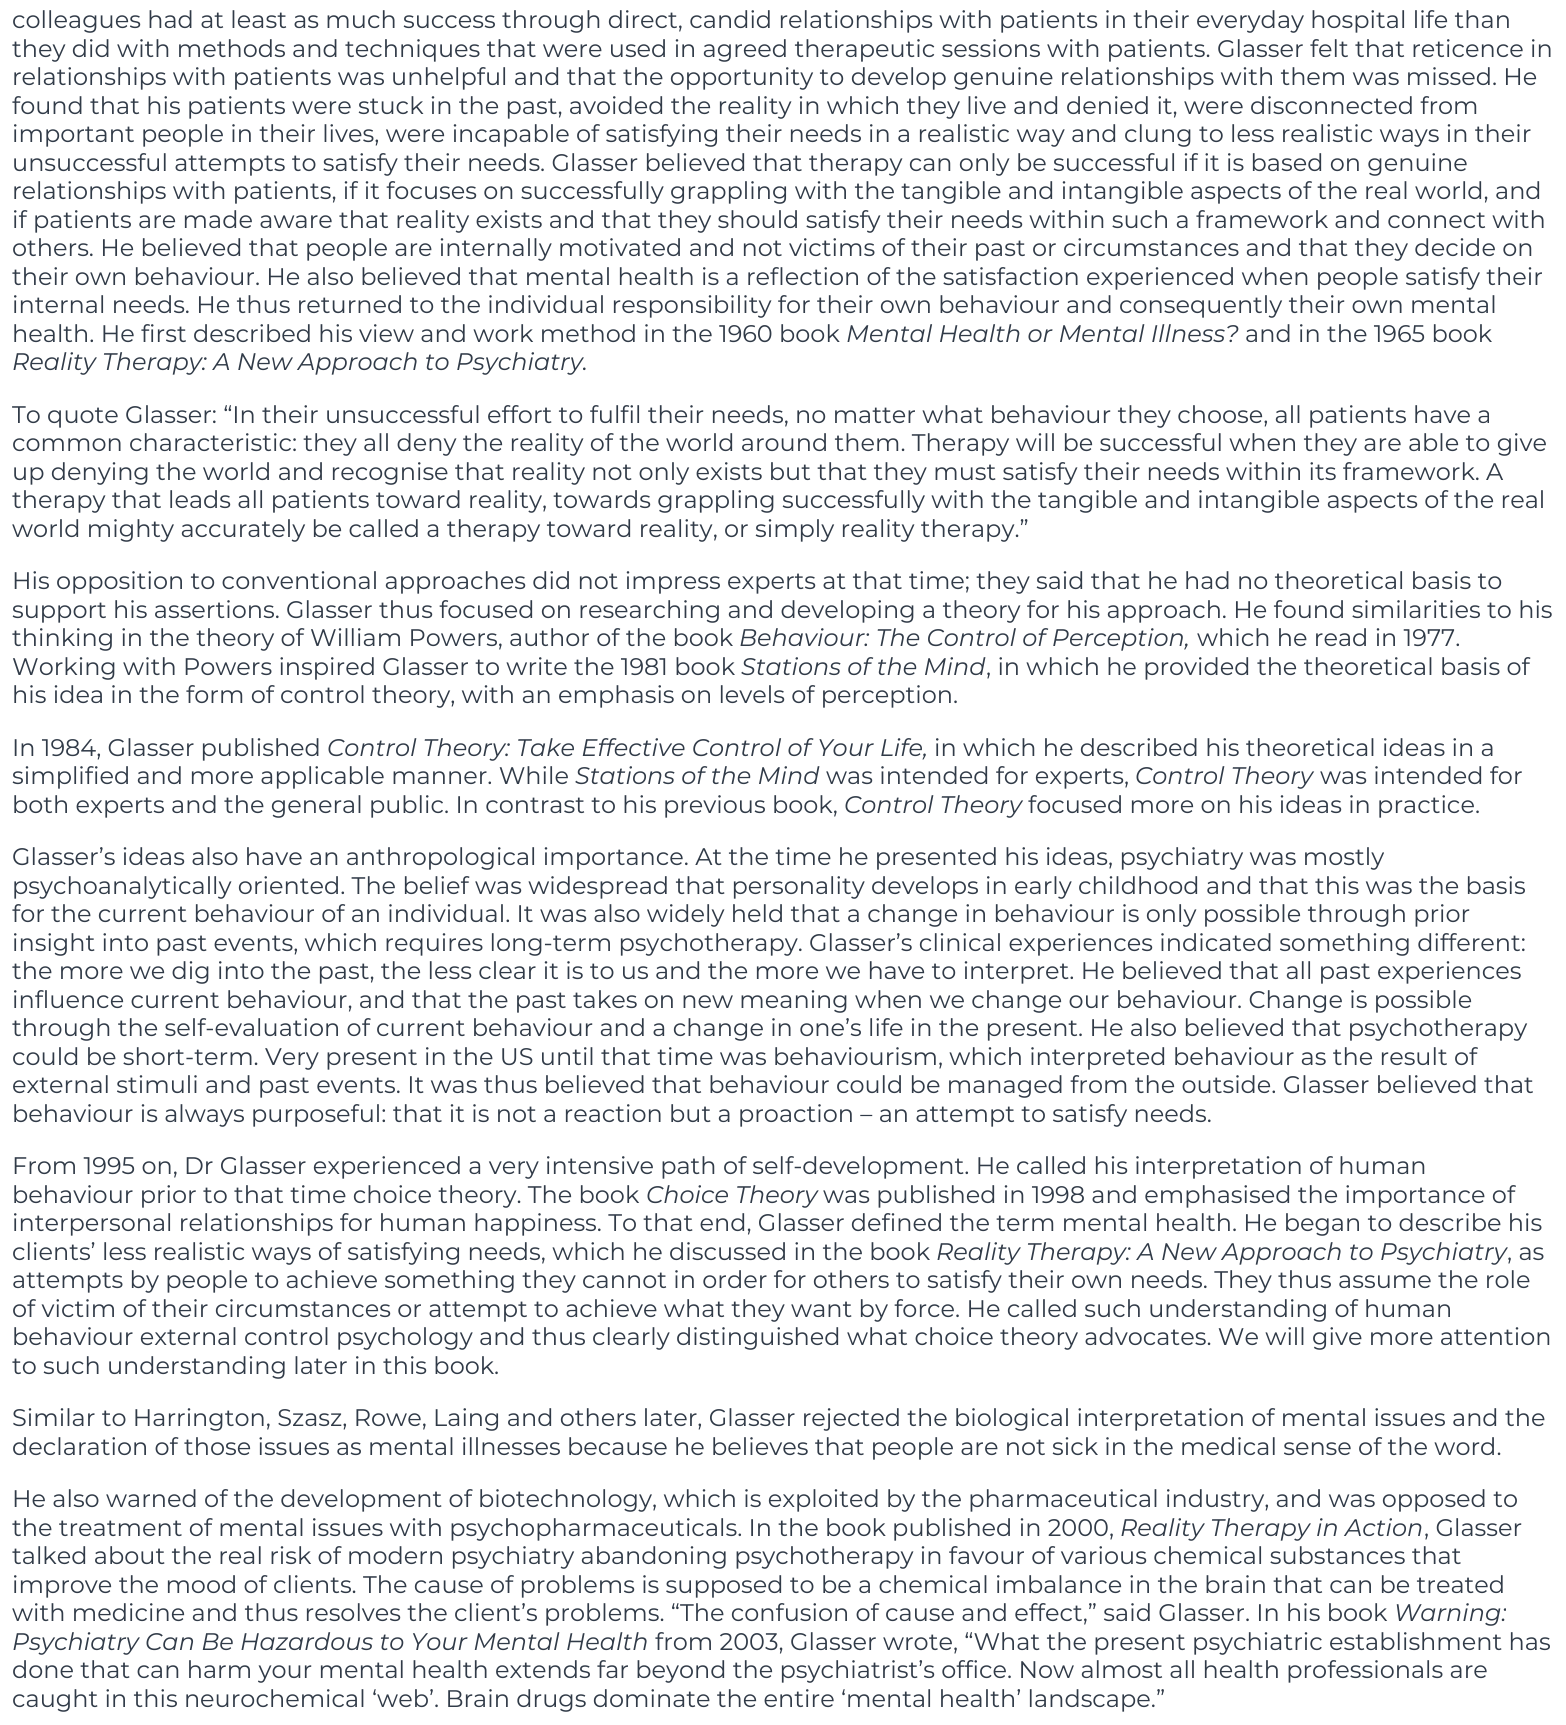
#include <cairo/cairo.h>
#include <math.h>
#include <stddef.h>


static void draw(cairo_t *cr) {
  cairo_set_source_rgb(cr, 1, 1, 1);
  cairo_paint(cr);
  cairo_select_font_face(cr, "Montserrat", CAIRO_FONT_SLANT_NORMAL, CAIRO_FONT_WEIGHT_NORMAL);
  cairo_set_font_size(cr, 24);
  cairo_set_source_rgb(cr, 49 / 255.0, 59 / 255.0, 72 / 255.0);
  cairo_move_to(cr, 12, 28);
  cairo_show_text(cr, "colleagues had at least as much success through direct, candid relationships with patients in their everyday hospital life than");
  cairo_move_to(cr, 12, 57);
  cairo_show_text(cr, "they did with methods and techniques that were used in agreed therapeutic sessions with patients. Glasser felt that reticence in");
  cairo_move_to(cr, 12, 85);
  cairo_show_text(cr, "relationships with patients was unhelpful and that the opportunity to develop genuine relationships with them was missed. He");
  cairo_move_to(cr, 12, 114);
  cairo_show_text(cr, "found that his patients were stuck in the past, avoided the reality in which they live and denied it, were disconnected from");
  cairo_move_to(cr, 12, 142);
  cairo_show_text(cr, "important people in their lives, were incapable of satisfying their needs in a realistic way and clung to less realistic ways in their");
  cairo_move_to(cr, 12, 171);
  cairo_show_text(cr, "unsuccessful attempts to satisfy their needs. Glasser believed that therapy can only be successful if it is based on genuine");
  cairo_move_to(cr, 12, 199);
  cairo_show_text(cr, "relationships with patients, if it focuses on successfully grappling with the tangible and intangible aspects of the real world, and");
  cairo_move_to(cr, 12, 228);
  cairo_show_text(cr, "if patients are made aware that reality exists and that they should satisfy their needs within such a framework and connect with");
  cairo_move_to(cr, 12, 256);
  cairo_show_text(cr, "others. He believed that people are internally motivated and not victims of their past or circumstances and that they decide on");
  cairo_move_to(cr, 12, 285);
  cairo_show_text(cr, "their own behaviour. He also believed that mental health is a reflection of the satisfaction experienced when people satisfy their");
  cairo_move_to(cr, 12, 313);
  cairo_show_text(cr, "internal needs. He thus returned to the individual responsibility for their own behaviour and consequently their own mental");
  cairo_move_to(cr, 12, 342);
  cairo_show_text(cr, "health. He first described his view and work method in the 1960 book");
  cairo_select_font_face(cr, "Montserrat", CAIRO_FONT_SLANT_ITALIC, CAIRO_FONT_WEIGHT_NORMAL);
  cairo_move_to(cr, 846, 342);
  cairo_show_text(cr, "Mental Health or Mental Illness?");
  cairo_select_font_face(cr, "Montserrat", CAIRO_FONT_SLANT_NORMAL, CAIRO_FONT_WEIGHT_NORMAL);
  cairo_move_to(cr, 1245, 342);
  cairo_show_text(cr, "and in the 1965 book");
  cairo_select_font_face(cr, "Montserrat", CAIRO_FONT_SLANT_ITALIC, CAIRO_FONT_WEIGHT_NORMAL);
  cairo_move_to(cr, 12, 370);
  cairo_show_text(cr, "Reality Therapy: A New Approach to Psychiatry.");
  cairo_select_font_face(cr, "Montserrat", CAIRO_FONT_SLANT_NORMAL, CAIRO_FONT_WEIGHT_NORMAL);
  cairo_move_to(cr, 12, 423);
  cairo_show_text(cr, "To quote Glasser: “In their unsuccessful effort to fulfil their needs, no matter what behaviour they choose, all patients have a");
  cairo_move_to(cr, 12, 451);
  cairo_show_text(cr, "common characteristic: they all deny the reality of the world around them. Therapy will be successful when they are able to give");
  cairo_move_to(cr, 12, 480);
  cairo_show_text(cr, "up denying the world and recognise that reality not only exists but that they must satisfy their needs within its framework. A");
  cairo_move_to(cr, 12, 508);
  cairo_show_text(cr, "therapy that leads all patients toward reality, towards grappling successfully with the tangible and intangible aspects of the real");
  cairo_move_to(cr, 12, 537);
  cairo_show_text(cr, "world mighty accurately be called a therapy toward reality, or simply reality therapy.”");
  cairo_move_to(cr, 12, 589);
  cairo_show_text(cr, "His opposition to conventional approaches did not impress experts at that time; they said that he had no theoretical basis to");
  cairo_move_to(cr, 12, 618);
  cairo_show_text(cr, "support his assertions. Glasser thus focused on researching and developing a theory for his approach. He found similarities to his");
  cairo_move_to(cr, 12, 646);
  cairo_show_text(cr, "thinking in the theory of William Powers, author of the book");
  cairo_select_font_face(cr, "Montserrat", CAIRO_FONT_SLANT_ITALIC, CAIRO_FONT_WEIGHT_NORMAL);
  cairo_move_to(cr, 739, 646);
  cairo_show_text(cr, "Behaviour: The Control of Perception,");
  cairo_select_font_face(cr, "Montserrat", CAIRO_FONT_SLANT_NORMAL, CAIRO_FONT_WEIGHT_NORMAL);
  cairo_move_to(cr, 1197, 646);
  cairo_show_text(cr, "which he read in 1977.");
  cairo_move_to(cr, 12, 675);
  cairo_show_text(cr, "Working with Powers inspired Glasser to write the 1981 book");
  cairo_select_font_face(cr, "Montserrat", CAIRO_FONT_SLANT_ITALIC, CAIRO_FONT_WEIGHT_NORMAL);
  cairo_move_to(cr, 741, 675);
  cairo_show_text(cr, "Stations of the Mind");
  cairo_select_font_face(cr, "Montserrat", CAIRO_FONT_SLANT_NORMAL, CAIRO_FONT_WEIGHT_NORMAL);
  cairo_move_to(cr, 986, 675);
  cairo_show_text(cr, ", in which he provided the theoretical basis of");
  cairo_move_to(cr, 12, 703);
  cairo_show_text(cr, "his idea in the form of control theory, with an emphasis on levels of perception.");
  cairo_move_to(cr, 12, 756);
  cairo_show_text(cr, "In 1984, Glasser published");
  cairo_select_font_face(cr, "Montserrat", CAIRO_FONT_SLANT_ITALIC, CAIRO_FONT_WEIGHT_NORMAL);
  cairo_move_to(cr, 327, 756);
  cairo_show_text(cr, "Control Theory: Take Effective Control of Your Life,");
  cairo_select_font_face(cr, "Montserrat", CAIRO_FONT_SLANT_NORMAL, CAIRO_FONT_WEIGHT_NORMAL);
  cairo_move_to(cr, 934, 756);
  cairo_show_text(cr, "in which he described his theoretical ideas in a");
  cairo_move_to(cr, 12, 784);
  cairo_show_text(cr, "simplified and more applicable manner. While");
  cairo_select_font_face(cr, "Montserrat", CAIRO_FONT_SLANT_ITALIC, CAIRO_FONT_WEIGHT_NORMAL);
  cairo_move_to(cr, 575, 784);
  cairo_show_text(cr, "Stations of the Mind");
  cairo_select_font_face(cr, "Montserrat", CAIRO_FONT_SLANT_NORMAL, CAIRO_FONT_WEIGHT_NORMAL);
  cairo_move_to(cr, 826, 784);
  cairo_show_text(cr, "was intended for experts,");
  cairo_select_font_face(cr, "Montserrat", CAIRO_FONT_SLANT_ITALIC, CAIRO_FONT_WEIGHT_NORMAL);
  cairo_move_to(cr, 1135, 784);
  cairo_show_text(cr, "Control Theory");
  cairo_select_font_face(cr, "Montserrat", CAIRO_FONT_SLANT_NORMAL, CAIRO_FONT_WEIGHT_NORMAL);
  cairo_move_to(cr, 1320, 784);
  cairo_show_text(cr, "was intended for");
  cairo_move_to(cr, 12, 813);
  cairo_show_text(cr, "both experts and the general public. In contrast to his previous book,");
  cairo_select_font_face(cr, "Montserrat", CAIRO_FONT_SLANT_ITALIC, CAIRO_FONT_WEIGHT_NORMAL);
  cairo_move_to(cr, 844, 813);
  cairo_show_text(cr, "Control Theory");
  cairo_select_font_face(cr, "Montserrat", CAIRO_FONT_SLANT_NORMAL, CAIRO_FONT_WEIGHT_NORMAL);
  cairo_move_to(cr, 1028, 813);
  cairo_show_text(cr, "focused more on his ideas in practice.");
  cairo_move_to(cr, 12, 865);
  cairo_show_text(cr, "Glasser’s ideas also have an anthropological importance. At the time he presented his ideas, psychiatry was mostly");
  cairo_move_to(cr, 12, 894);
  cairo_show_text(cr, "psychoanalytically oriented. The belief was widespread that personality develops in early childhood and that this was the basis");
  cairo_move_to(cr, 12, 922);
  cairo_show_text(cr, "for the current behaviour of an individual. It was also widely held that a change in behaviour is only possible through prior");
  cairo_move_to(cr, 12, 951);
  cairo_show_text(cr, "insight into past events, which requires long-term psychotherapy. Glasser’s clinical experiences indicated something different:");
  cairo_move_to(cr, 12, 979);
  cairo_show_text(cr, "the more we dig into the past, the less clear it is to us and the more we have to interpret. He believed that all past experiences");
  cairo_move_to(cr, 12, 1008);
  cairo_show_text(cr, "influence current behaviour, and that the past takes on new meaning when we change our behaviour. Change is possible");
  cairo_move_to(cr, 12, 1036);
  cairo_show_text(cr, "through the self-evaluation of current behaviour and a change in one’s life in the present. He also believed that psychotherapy");
  cairo_move_to(cr, 12, 1065);
  cairo_show_text(cr, "could be short-term. Very present in the US until that time was behaviourism, which interpreted behaviour as the result of");
  cairo_move_to(cr, 12, 1093);
  cairo_show_text(cr, "external stimuli and past events. It was thus believed that behaviour could be managed from the outside. Glasser believed that");
  cairo_move_to(cr, 12, 1122);
  cairo_show_text(cr, "behaviour is always purposeful: that it is not a reaction but a proaction – an attempt to satisfy needs.");
  cairo_move_to(cr, 12, 1174);
  cairo_show_text(cr, "From 1995 on, Dr Glasser experienced a very intensive path of self-development. He called his interpretation of human");
  cairo_move_to(cr, 12, 1203);
  cairo_show_text(cr, "behaviour prior to that time choice theory. The book");
  cairo_select_font_face(cr, "Montserrat", CAIRO_FONT_SLANT_ITALIC, CAIRO_FONT_WEIGHT_NORMAL);
  cairo_move_to(cr, 646, 1203);
  cairo_show_text(cr, "Choice Theory");
  cairo_select_font_face(cr, "Montserrat", CAIRO_FONT_SLANT_NORMAL, CAIRO_FONT_WEIGHT_NORMAL);
  cairo_move_to(cr, 823, 1203);
  cairo_show_text(cr, "was published in 1998 and emphasised the importance of");
  cairo_move_to(cr, 12, 1231);
  cairo_show_text(cr, "interpersonal relationships for human happiness. To that end, Glasser defined the term mental health. He began to describe his");
  cairo_move_to(cr, 12, 1260);
  cairo_show_text(cr, "clients’ less realistic ways of satisfying needs, which he discussed in the book");
  cairo_select_font_face(cr, "Montserrat", CAIRO_FONT_SLANT_ITALIC, CAIRO_FONT_WEIGHT_NORMAL);
  cairo_move_to(cr, 936, 1260);
  cairo_show_text(cr, "Reality Therapy: A New Approach to Psychiatry");
  cairo_select_font_face(cr, "Montserrat", CAIRO_FONT_SLANT_NORMAL, CAIRO_FONT_WEIGHT_NORMAL);
  cairo_move_to(cr, 1507, 1260);
  cairo_show_text(cr, ", as");
  cairo_move_to(cr, 12, 1288);
  cairo_show_text(cr, "attempts by people to achieve something they cannot in order for others to satisfy their own needs. They thus assume the role");
  cairo_move_to(cr, 12, 1317);
  cairo_show_text(cr, "of victim of their circumstances or attempt to achieve what they want by force. He called such understanding of human");
  cairo_move_to(cr, 12, 1345);
  cairo_show_text(cr, "behaviour external control psychology and thus clearly distinguished what choice theory advocates. We will give more attention");
  cairo_move_to(cr, 12, 1374);
  cairo_show_text(cr, "to such understanding later in this book.");
  cairo_move_to(cr, 12, 1426);
  cairo_show_text(cr, "Similar to Harrington, Szasz, Rowe, Laing and others later, Glasser rejected the biological interpretation of mental issues and the");
  cairo_move_to(cr, 12, 1455);
  cairo_show_text(cr, "declaration of those issues as mental illnesses because he believes that people are not sick in the medical sense of the word.");
  cairo_move_to(cr, 12, 1507);
  cairo_show_text(cr, "He also warned of the development of biotechnology, which is exploited by the pharmaceutical industry, and was opposed to");
  cairo_move_to(cr, 12, 1536);
  cairo_show_text(cr, "the treatment of mental issues with psychopharmaceuticals. In the book published in 2000,");
  cairo_select_font_face(cr, "Montserrat", CAIRO_FONT_SLANT_ITALIC, CAIRO_FONT_WEIGHT_NORMAL);
  cairo_move_to(cr, 1120, 1536);
  cairo_show_text(cr, "Reality Therapy in Action");
  cairo_select_font_face(cr, "Montserrat", CAIRO_FONT_SLANT_NORMAL, CAIRO_FONT_WEIGHT_NORMAL);
  cairo_move_to(cr, 1424, 1536);
  cairo_show_text(cr, ", Glasser");
  cairo_move_to(cr, 12, 1564);
  cairo_show_text(cr, "talked about the real risk of modern psychiatry abandoning psychotherapy in favour of various chemical substances that");
  cairo_move_to(cr, 12, 1593);
  cairo_show_text(cr, "improve the mood of clients. The cause of problems is supposed to be a chemical imbalance in the brain that can be treated");
  cairo_move_to(cr, 12, 1621);
  cairo_show_text(cr, "with medicine and thus resolves the client’s problems. “The confusion of cause and effect,” said Glasser. In his book");
  cairo_select_font_face(cr, "Montserrat", CAIRO_FONT_SLANT_ITALIC, CAIRO_FONT_WEIGHT_NORMAL);
  cairo_move_to(cr, 1394, 1621);
  cairo_show_text(cr, "Warning:");
  cairo_move_to(cr, 12, 1650);
  cairo_show_text(cr, "Psychiatry Can Be Hazardous to Your Mental Health");
  cairo_select_font_face(cr, "Montserrat", CAIRO_FONT_SLANT_NORMAL, CAIRO_FONT_WEIGHT_NORMAL);
  cairo_move_to(cr, 655, 1650);
  cairo_show_text(cr, "from 2003, Glasser wrote, “What the present psychiatric establishment has");
  cairo_move_to(cr, 12, 1678);
  cairo_show_text(cr, "done that can harm your mental health extends far beyond the psychiatrist’s office. Now almost all health professionals are");
  cairo_move_to(cr, 12, 1707);
  cairo_show_text(cr, "caught in this neurochemical ‘web’. Brain drugs dominate the entire ‘mental health’ landscape.”");
}

int main(void) {
  cairo_surface_t *surface = cairo_image_surface_create(CAIRO_FORMAT_RGB24, 1566, 1725);
  cairo_t *cr = cairo_create(surface);
  cairo_font_options_t *options = cairo_font_options_create();
  cairo_font_options_set_hint_metrics(options, CAIRO_HINT_METRICS_OFF);
  cairo_font_options_set_hint_style(options, CAIRO_HINT_STYLE_NONE);
  cairo_set_font_options(cr, options);
  cairo_set_miter_limit(cr, 4);
  draw(cr);
  cairo_surface_write_to_png(surface, "out.png");
  cairo_font_options_destroy(options);
  cairo_destroy(cr);
  cairo_surface_destroy(surface);
  return 0;
}
